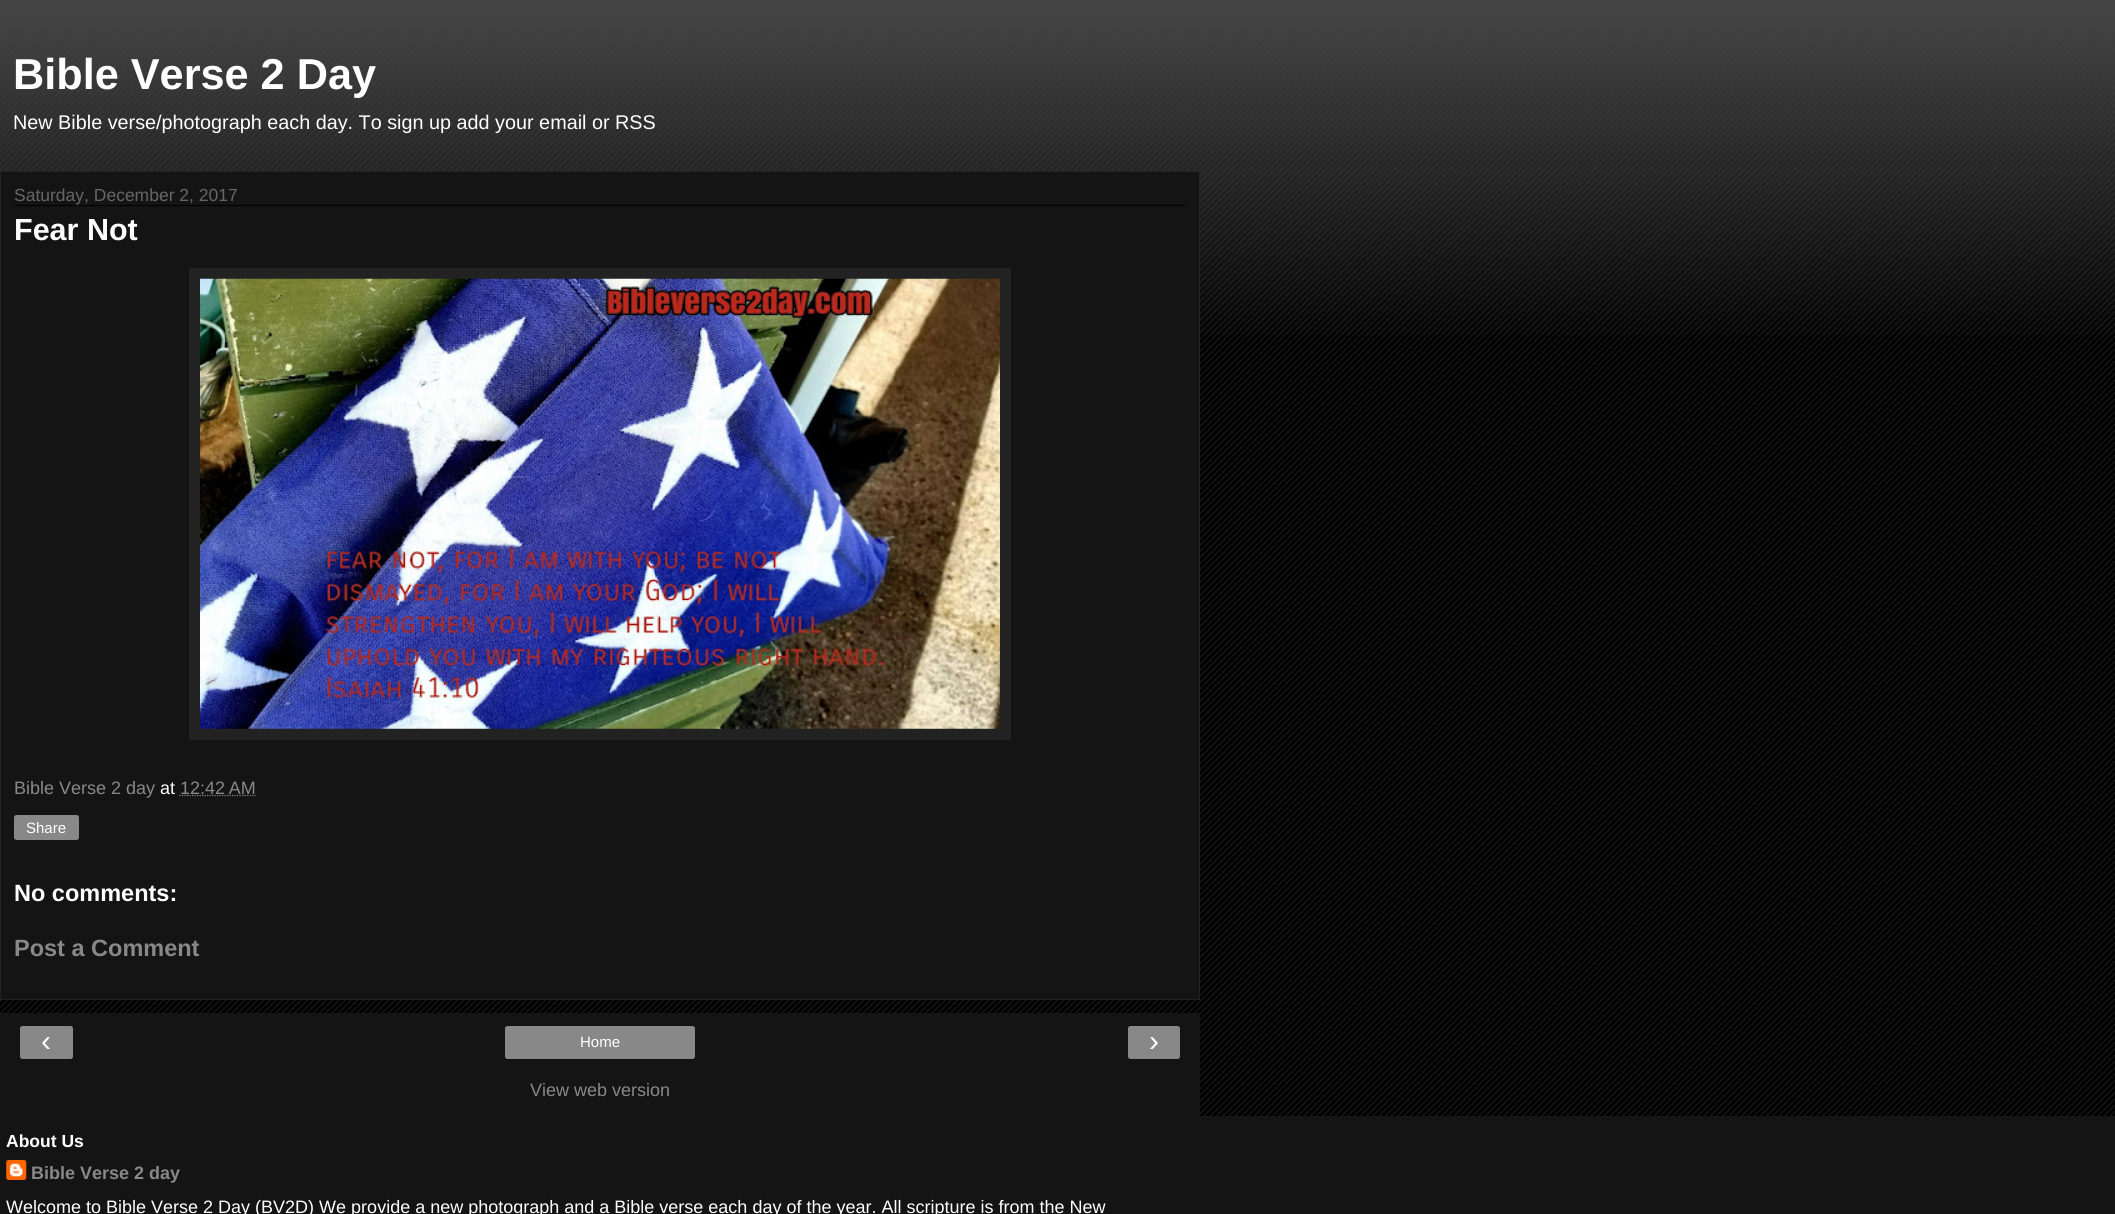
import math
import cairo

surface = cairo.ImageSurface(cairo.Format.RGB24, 2115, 1214)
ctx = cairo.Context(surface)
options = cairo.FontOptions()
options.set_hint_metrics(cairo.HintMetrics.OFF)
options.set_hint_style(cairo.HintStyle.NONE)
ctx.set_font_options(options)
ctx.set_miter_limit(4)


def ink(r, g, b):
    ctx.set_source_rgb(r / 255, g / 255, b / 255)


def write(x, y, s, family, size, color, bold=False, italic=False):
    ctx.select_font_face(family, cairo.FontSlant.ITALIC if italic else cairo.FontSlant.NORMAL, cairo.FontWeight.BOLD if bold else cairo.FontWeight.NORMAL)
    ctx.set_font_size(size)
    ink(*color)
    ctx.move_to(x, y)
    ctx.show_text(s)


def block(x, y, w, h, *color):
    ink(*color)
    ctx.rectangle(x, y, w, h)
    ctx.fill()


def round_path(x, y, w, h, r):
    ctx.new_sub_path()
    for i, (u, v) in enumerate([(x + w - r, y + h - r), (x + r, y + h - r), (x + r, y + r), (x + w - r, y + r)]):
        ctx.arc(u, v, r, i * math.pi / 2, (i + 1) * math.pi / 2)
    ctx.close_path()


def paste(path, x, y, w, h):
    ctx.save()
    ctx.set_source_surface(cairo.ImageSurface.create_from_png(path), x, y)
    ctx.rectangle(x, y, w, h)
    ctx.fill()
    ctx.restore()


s1 = dict(family="Liberation Sans", size=43.25, color=(255, 255, 255), bold=True)
s2 = dict(family="Liberation Sans", size=19.8, color=(255, 255, 255))
s3 = dict(family="Liberation Sans", size=17.5, color=(102, 102, 102))
s4 = dict(family="Liberation Sans", size=30.5, color=(255, 255, 255), bold=True)
s5 = dict(family="Liberation Sans", size=18, color=(136, 136, 136))
s6 = dict(family="Liberation Sans", size=18, color=(255, 255, 255))
s7 = dict(family="Liberation Sans", size=15, color=(255, 255, 255))
s8 = dict(family="Liberation Sans", size=23.5, color=(255, 255, 255), bold=True)
s9 = dict(family="Liberation Sans", size=23.5, color=(136, 136, 136), bold=True)
s10 = dict(family="Liberation Sans", size=30, color=(255, 255, 255))
s11 = dict(family="Liberation Sans", size=17.5, color=(255, 255, 255), bold=True)
s12 = dict(family="Liberation Sans", size=18, color=(136, 136, 136), bold=True)

ink(0, 0, 0)
ctx.paint()
paste("pic1.png", 0, 16, 2115, 1100)
paste("pic2.png", 0, 0, 2115, 335)
write(13, 89, "Bible Verse 2 Day", **s1)
write(13, 129, "New Bible verse/photograph each day. To sign up add your email or RSS", **s2)
ink(20, 20, 20)
ctx.rectangle(0.5, 171.5, 1199, 828)
ctx.fill_preserve()
ink(34, 34, 34)
ctx.set_line_width(1)
ctx.stroke()
block(14, 205, 1172, 1, 0, 0, 0)
write(14, 201, "Saturday, December 2, 2017", **s3)
write(14, 240, "Fear Not", **s4)
block(189, 268, 822, 472, 34, 34, 34)
paste("pic3.png", 200, 278, 800, 451)
write(14, 794, "Bible Verse 2 day", **s5)
write(160, 794, "at", **s6)
write(180, 794, "12:42 AM", **s5)
ctx.new_path()
ctx.move_to(179.5, 795.5)
ctx.line_to(255.5, 795.5)
ctx.set_line_width(1.2)
ctx.set_dash([1.25, 1.25])
ctx.stroke()
round_path(14, 815, 65, 25, 2.5)
ctx.fill()
write(26, 833, "Share", **s7)
write(14, 901, "No comments:", **s8)
write(14, 956, "Post a Comment", **s9)
block(0, 1013, 1200, 103, 20, 20, 20)
ink(136, 136, 136)
round_path(20, 1026, 53, 33, 2.5)
ctx.fill()
write(41, 1051, "‹", **s10)
ink(136, 136, 136)
round_path(505, 1026, 190, 33, 2.5)
ctx.fill()
write(580, 1047, "Home", **s7)
ink(136, 136, 136)
round_path(1128, 1026, 52, 33, 2.5)
ctx.fill()
write(1149, 1051, "›", **s10)
write(530, 1096, "View web version", **s5)
block(0, 1116, 2115, 98, 20, 20, 20)
write(6, 1147, "About Us", **s11)
paste("pic4.png", 6, 1160, 21, 20)
write(31, 1179, "Bible Verse 2 day", **s12)
write(6, 1213, "Welcome to Bible Verse 2 Day (BV2D) We provide a new photograph and a Bible verse each day of the year. All scripture is from the New", **s6)
surface.write_to_png("screenshot.png")
